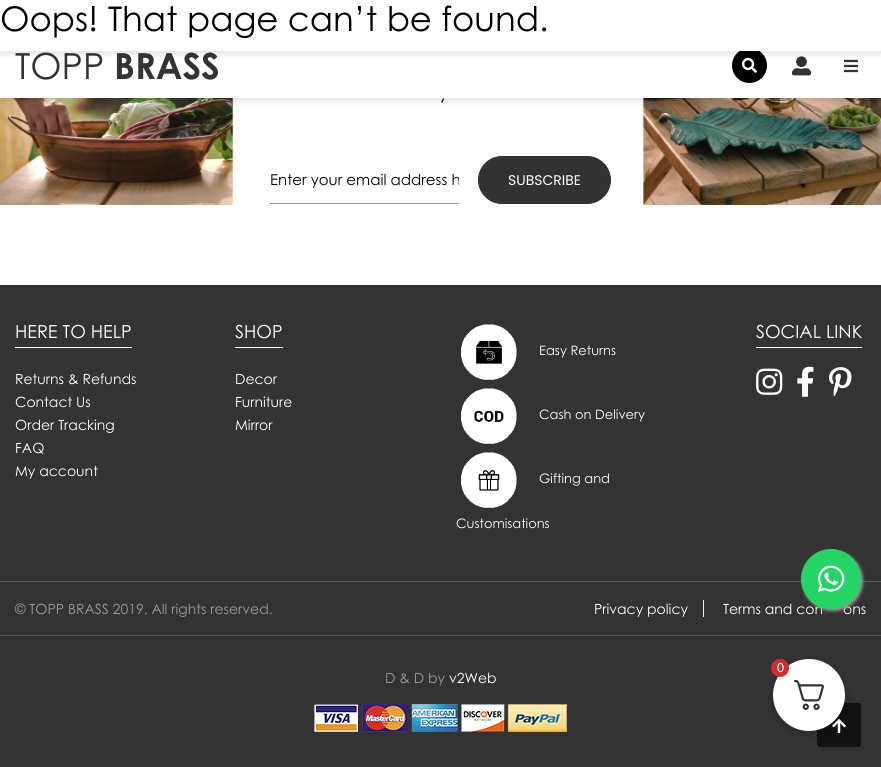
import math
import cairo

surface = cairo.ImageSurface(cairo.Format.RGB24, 881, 767)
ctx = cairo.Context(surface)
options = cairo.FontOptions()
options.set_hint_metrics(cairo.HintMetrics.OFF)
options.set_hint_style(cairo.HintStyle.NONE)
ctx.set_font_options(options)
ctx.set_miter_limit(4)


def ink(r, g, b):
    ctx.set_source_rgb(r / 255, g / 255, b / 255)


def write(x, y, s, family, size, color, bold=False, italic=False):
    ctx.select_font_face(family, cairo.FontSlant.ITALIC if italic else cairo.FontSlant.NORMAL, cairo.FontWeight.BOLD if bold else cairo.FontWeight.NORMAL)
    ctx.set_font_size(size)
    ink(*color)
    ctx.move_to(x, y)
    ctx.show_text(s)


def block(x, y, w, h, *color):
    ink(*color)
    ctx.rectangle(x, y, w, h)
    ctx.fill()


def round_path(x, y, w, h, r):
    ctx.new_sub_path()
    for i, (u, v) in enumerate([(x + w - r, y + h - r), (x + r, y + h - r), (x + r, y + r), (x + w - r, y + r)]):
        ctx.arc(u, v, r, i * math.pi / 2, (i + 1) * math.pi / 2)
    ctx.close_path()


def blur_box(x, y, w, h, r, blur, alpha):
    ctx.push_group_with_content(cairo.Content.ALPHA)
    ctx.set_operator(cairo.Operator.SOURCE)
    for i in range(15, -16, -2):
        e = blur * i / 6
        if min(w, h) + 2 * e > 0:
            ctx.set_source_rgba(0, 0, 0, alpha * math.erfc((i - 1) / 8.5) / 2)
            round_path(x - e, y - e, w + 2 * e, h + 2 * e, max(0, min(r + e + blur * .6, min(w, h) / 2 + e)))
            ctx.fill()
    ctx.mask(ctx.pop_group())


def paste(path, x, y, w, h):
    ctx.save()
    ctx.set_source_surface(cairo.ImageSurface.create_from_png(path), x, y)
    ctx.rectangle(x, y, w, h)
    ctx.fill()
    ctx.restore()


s1 = dict(family="Century Gothic", size=34, color=(0, 0, 0))
s2 = dict(family="Century Gothic", size=36, color=(50, 51, 50))
s3 = dict(family="Century Gothic", size=36, color=(50, 51, 50), bold=True)
s4 = dict(family="Century Gothic", size=20, color=(0, 0, 0))
s5 = dict(family="Century Gothic", size=15, color=(0, 0, 0))
s6 = dict(family="Poppins", size=14, color=(255, 255, 255))
s7 = dict(family="Century Gothic", size=18, color=(255, 255, 255))
s8 = dict(family="Century Gothic", size=14, color=(255, 255, 255))
s9 = dict(family="Century Gothic", size=13, color=(255, 255, 255))
s10 = dict(family="Century Gothic", size=14, color=(153, 153, 153))
s11 = dict(family="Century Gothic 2", size=12, color=(255, 255, 255), bold=True)

ink(255, 255, 255)
ctx.paint()
paste("pic4.png", 0, 98, 881, 107)
ink(0, 0, 0)
blur_box(0, 3, 881, 98, 0, 3.5, 0.12)
block(0, 51, 881, 47, 255, 255, 255)
ink(0, 0, 0)
ctx.arc(749.5, 65.5, 17.5, 0, 2 * math.pi)
ctx.fill()
paste("pic1.png", 742, 57, 15, 16)
paste("pic2.png", 792, 56, 19, 20)
paste("pic3.png", 844, 59, 14, 14)
ink(0, 0, 0)
blur_box(0, 3, 881, 51, 0, 3.5, 0.12)
block(0, 0, 881, 51, 255, 255, 255)
write(0, 31, "Oops! That page can’t be found.", **s1)
write(15, 79, "TOPP", **s2)
write(114, 79, "BRASS", **s3)
write(440, 101, ",", **s4)
block(270, 203, 189, 1, 153, 153, 153)
ctx.save()
ctx.rectangle(270, 168, 189, 23)
ctx.clip()
write(270, 185, "Enter your email address h", **s5)
ctx.restore()
ink(50, 50, 50)
round_path(478.5, 156.5, 132, 47, 23.5)
ctx.fill_preserve()
ctx.set_line_width(1)
ctx.stroke()
write(508, 185, "SUBSCRIBE", **s6)
block(0, 285, 881, 482, 50, 51, 50)
write(15, 338, "HERE TO HELP", **s7)
block(15, 347, 117, 1, 255, 255, 255)
write(15, 384, "Returns & Refunds", **s8)
write(15, 407, "Contact Us", **s8)
write(15, 430, "Order Tracking", **s8)
write(15, 453, "FAQ", **s8)
write(15, 476, "My account", **s8)
write(235, 338, "SHOP", **s7)
block(235, 347, 48, 1, 255, 255, 255)
write(235, 384, "Decor", **s8)
write(235, 407, "Furniture", **s8)
write(235, 430, "Mirror", **s8)
write(756, 338, "SOCIAL LINK", **s7)
block(756, 347, 106, 1, 255, 255, 255)
paste("pic5.png", 756, 368, 27, 27)
paste("pic6.png", 797, 366, 17, 31)
paste("pic7.png", 829, 367, 23, 30)
paste("pic8.png", 461, 324, 56, 56)
write(539, 355, "Easy Returns", **s9)
paste("pic9.png", 461, 388, 56, 56)
write(539, 419, "Cash on Delivery", **s9)
paste("pic10.png", 461, 452, 56, 56)
write(539, 483, "Gifting and", **s9)
write(456, 528, "Customisations", **s9)
block(0, 581, 881, 1, 87, 88, 87)
block(0, 635, 881, 1, 87, 88, 87)
write(15, 614, "© TOPP BRASS 2019. All rights reserved.", **s10)
write(594, 614, "Privacy policy", **s8)
block(703, 600, 1, 17, 238, 238, 238)
write(723, 614, "Terms and con", **s8)
write(843, 614, "ons", **s8)
write(385, 683, "D & D by", **s10)
write(449, 683, "v2Web", **s8)
paste("pic11.png", 314, 704, 253, 28)
ink(153, 153, 153)
blur_box(803, 551, 60, 60, 30, 1.5, 1)
ink(37, 211, 102)
ctx.arc(831, 579, 30, 0, 2 * math.pi)
ctx.fill()
paste("pic12.png", 818, 565, 27, 27)
ink(17, 17, 17)
round_path(817.5, 703.5, 43, 43, 2.5)
ctx.fill_preserve()
ctx.stroke()
paste("pic14.png", 832, 719, 14, 14)
ink(0, 0, 0)
blur_box(773, 661, 72, 72, 36, 4, 0.25)
ink(255, 255, 255)
ctx.arc(809, 695, 36, 0, 2 * math.pi)
ctx.fill()
paste("pic13.png", 794, 680, 30, 30)
ink(207, 46, 46)
ctx.arc(780, 668, 9, 0, 2 * math.pi)
ctx.fill()
write(777, 672, "0", **s11)
surface.write_to_png("screenshot.png")
